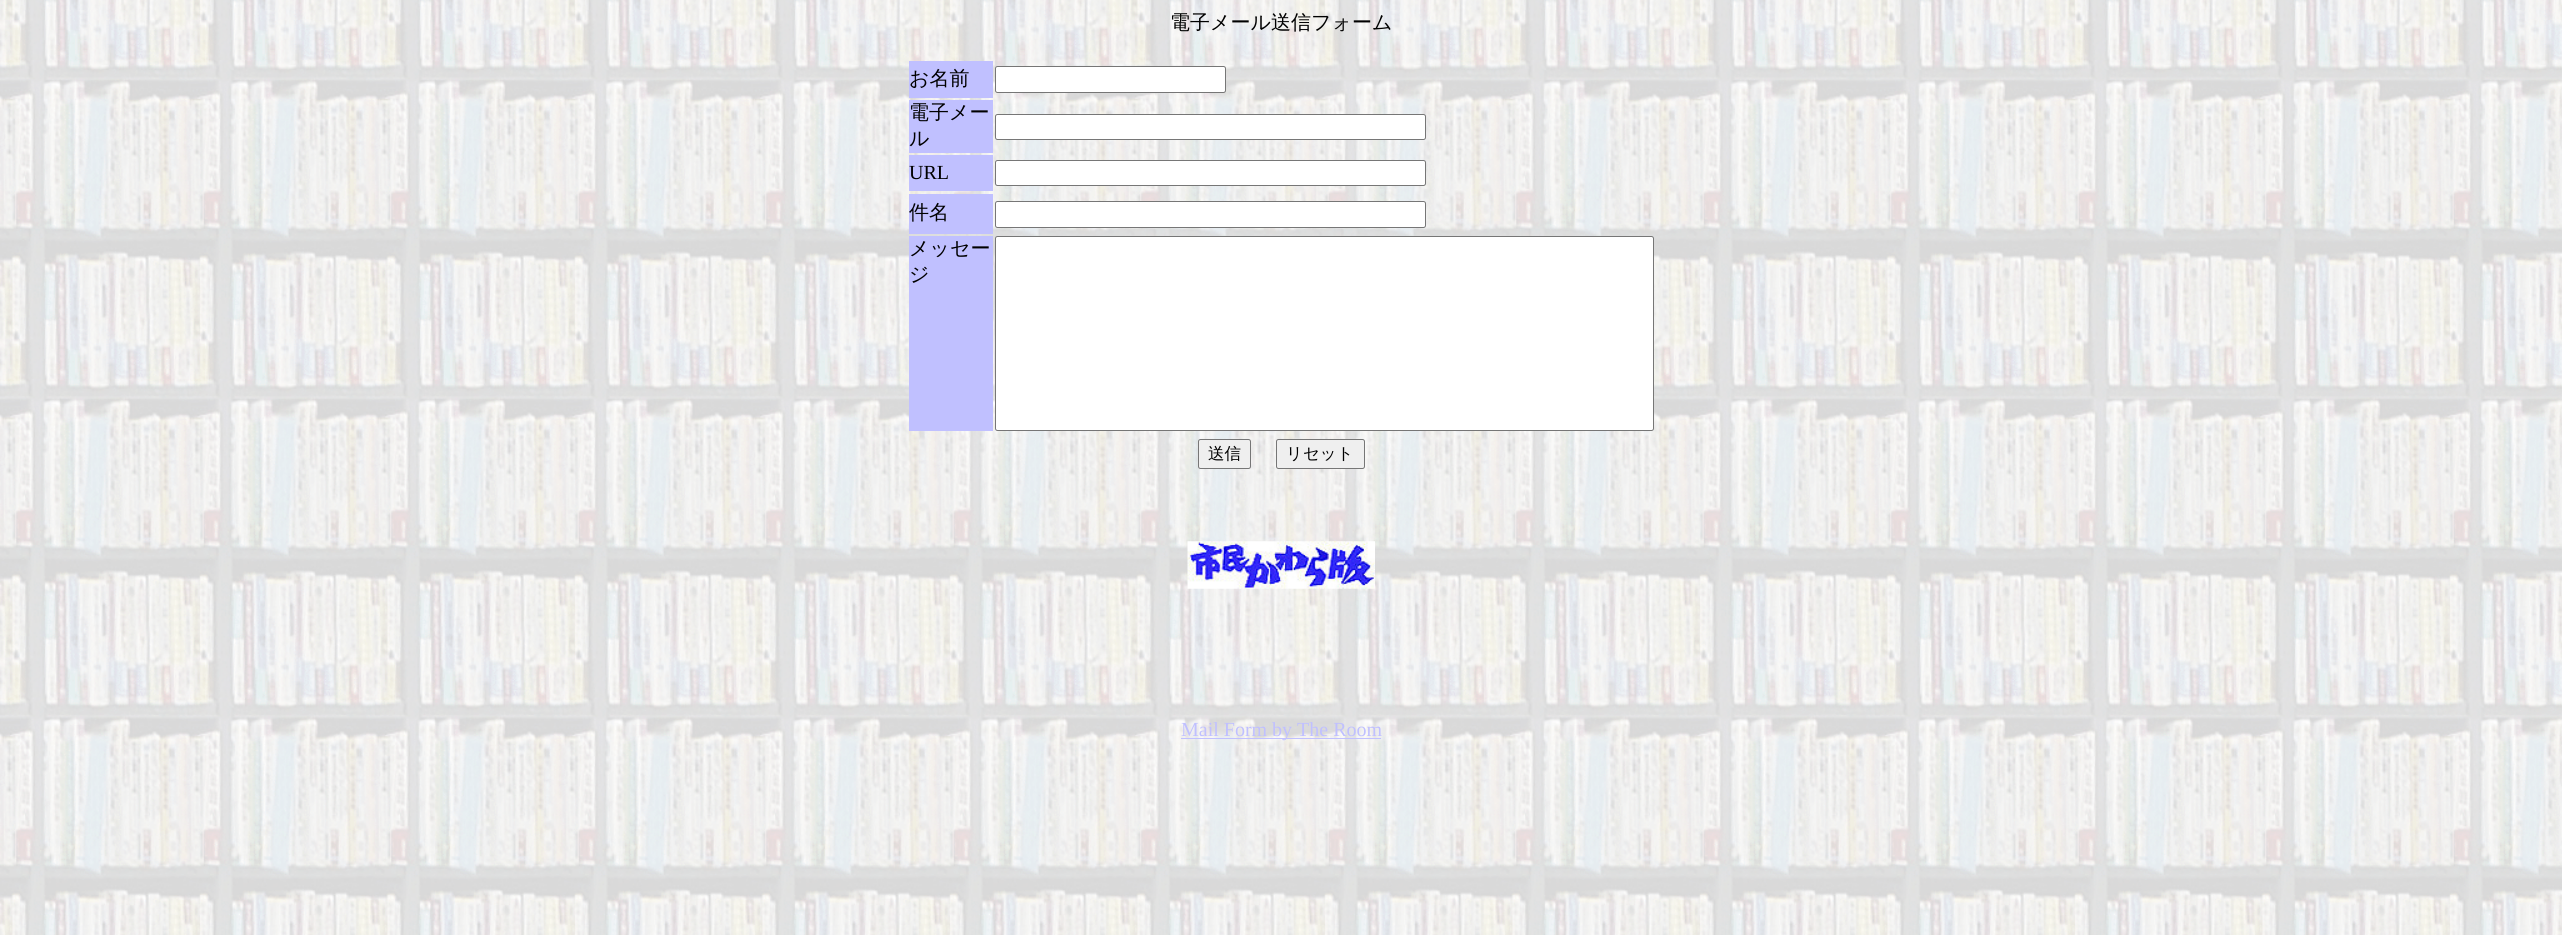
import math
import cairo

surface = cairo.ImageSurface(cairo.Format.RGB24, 2562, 935)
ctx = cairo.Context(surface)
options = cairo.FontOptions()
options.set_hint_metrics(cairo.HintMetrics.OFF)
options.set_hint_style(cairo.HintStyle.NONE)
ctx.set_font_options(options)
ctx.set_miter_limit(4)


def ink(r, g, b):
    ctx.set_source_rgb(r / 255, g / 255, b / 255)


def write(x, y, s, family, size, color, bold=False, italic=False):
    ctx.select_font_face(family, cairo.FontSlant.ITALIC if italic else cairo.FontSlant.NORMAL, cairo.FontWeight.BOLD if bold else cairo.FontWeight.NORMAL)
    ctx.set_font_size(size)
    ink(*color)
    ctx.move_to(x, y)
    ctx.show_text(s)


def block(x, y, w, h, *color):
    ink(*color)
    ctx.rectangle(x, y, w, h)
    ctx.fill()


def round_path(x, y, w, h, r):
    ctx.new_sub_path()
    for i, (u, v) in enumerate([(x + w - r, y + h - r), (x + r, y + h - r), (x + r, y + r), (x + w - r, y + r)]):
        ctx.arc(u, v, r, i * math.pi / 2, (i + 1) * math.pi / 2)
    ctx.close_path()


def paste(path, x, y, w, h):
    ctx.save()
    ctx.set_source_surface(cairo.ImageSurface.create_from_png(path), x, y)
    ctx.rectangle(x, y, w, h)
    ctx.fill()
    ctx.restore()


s1 = dict(family="WenQuanYi Zen Hei Medium", size=20, color=(0, 0, 0))
s2 = dict(family="Liberation Serif", size=20, color=(0, 0, 0))
s3 = dict(family="WenQuanYi Zen Hei Medium", size=16.5, color=(0, 0, 0))
s4 = dict(family="Liberation Serif", size=20, color=(192, 192, 255))

ink(255, 255, 255)
ctx.paint()
paste("pic1.png", 0, 0, 2562, 935)
write(1170, 29, "電子メール送信フォーム", **s1)
block(909, 61, 84, 37, 192, 192, 255)
write(909, 85, "お名前", **s1)
ink(255, 255, 255)
round_path(995.5, 66.5, 230, 26, 2)
ctx.fill_preserve()
ink(118, 118, 118)
ctx.set_line_width(1)
ctx.stroke()
block(909, 100, 84, 53, 192, 192, 255)
write(909, 119, "電子メー", **s1)
write(909, 145, "ル", **s1)
ink(255, 255, 255)
round_path(995.5, 114.5, 430, 25, 2)
ctx.fill_preserve()
ink(118, 118, 118)
ctx.stroke()
block(909, 155, 84, 36, 192, 192, 255)
write(909, 179, "URL", **s2)
ink(255, 255, 255)
round_path(995.5, 160.5, 430, 25, 2)
ctx.fill_preserve()
ink(118, 118, 118)
ctx.stroke()
block(909, 194, 84, 40, 192, 192, 255)
write(909, 219, "件名", **s1)
ink(255, 255, 255)
round_path(995.5, 201.5, 430, 26, 2)
ctx.fill_preserve()
ink(118, 118, 118)
ctx.stroke()
block(909, 236, 84, 195, 192, 192, 255)
write(909, 255, "メッセー", **s1)
write(909, 281, "ジ", **s1)
ink(255, 255, 255)
round_path(995.5, 236.5, 658, 194, 2)
ctx.fill_preserve()
ink(118, 118, 118)
ctx.stroke()
ink(239, 239, 239)
round_path(1198.5, 439.5, 52, 29, 2)
ctx.fill_preserve()
ink(118, 118, 118)
ctx.stroke()
write(1208, 459, "送信", **s3)
ink(239, 239, 239)
round_path(1276.5, 439.5, 88, 29, 2)
ctx.fill_preserve()
ink(118, 118, 118)
ctx.stroke()
write(1286, 459, "リセット", **s3)
paste("pic2.png", 1187, 541, 188, 48)
block(1181, 738, 200, 1, 192, 192, 255)
write(1181, 736, "Mail Form by The Room", **s4)
surface.write_to_png("screenshot.png")
